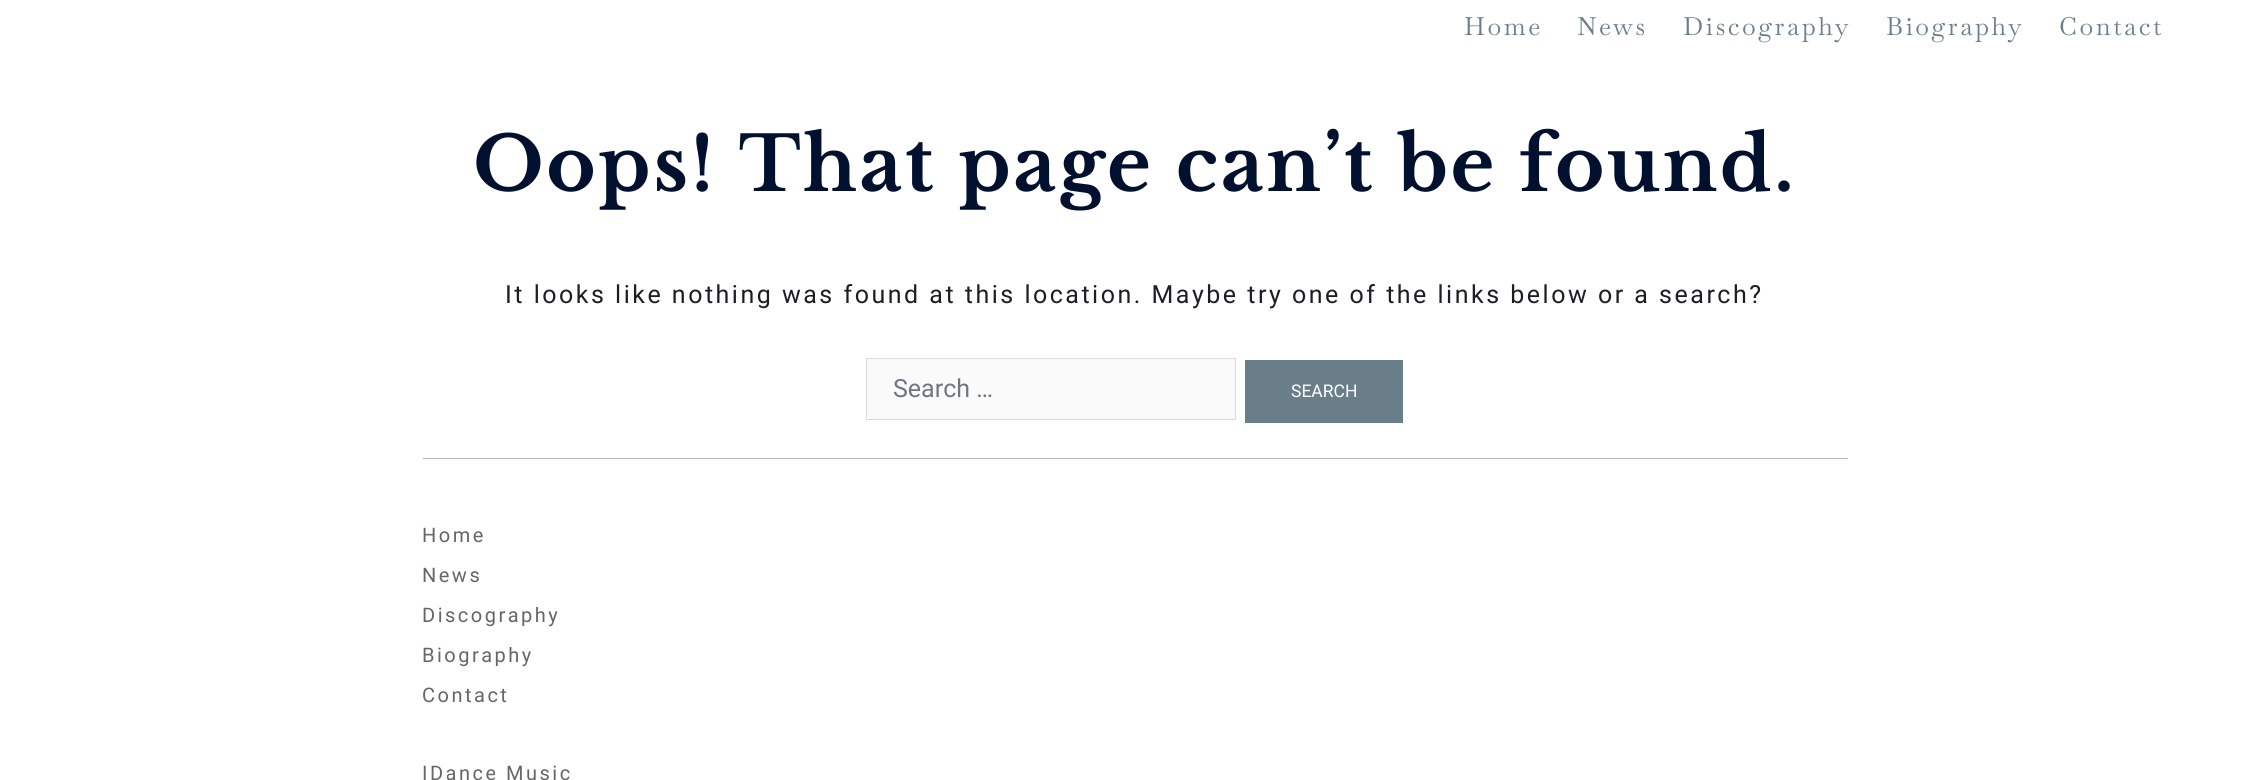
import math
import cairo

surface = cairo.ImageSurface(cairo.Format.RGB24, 2268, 780)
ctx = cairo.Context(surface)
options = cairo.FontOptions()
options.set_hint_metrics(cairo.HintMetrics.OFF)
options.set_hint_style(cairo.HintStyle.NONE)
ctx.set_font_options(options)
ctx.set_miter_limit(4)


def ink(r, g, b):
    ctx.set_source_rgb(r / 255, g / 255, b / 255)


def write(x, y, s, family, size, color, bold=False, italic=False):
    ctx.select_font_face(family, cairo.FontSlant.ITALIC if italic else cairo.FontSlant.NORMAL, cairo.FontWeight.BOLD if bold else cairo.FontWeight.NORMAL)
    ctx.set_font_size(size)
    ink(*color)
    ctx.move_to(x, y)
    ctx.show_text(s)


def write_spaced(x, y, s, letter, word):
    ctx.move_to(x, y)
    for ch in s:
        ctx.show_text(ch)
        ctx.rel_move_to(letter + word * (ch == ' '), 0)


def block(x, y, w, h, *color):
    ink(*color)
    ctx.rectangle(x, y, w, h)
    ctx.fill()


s1 = dict(family="Roboto", size=25, color=(109, 118, 133))
s2 = dict(family="Roboto", size=17.5, color=(255, 255, 255))

ink(255, 255, 255)
ctx.paint()
ctx.select_font_face("Baskervville")
ctx.set_font_size(25)
ink(106, 126, 138)
write_spaced(1464, 35, "Home", 2.5, 0)
write_spaced(1577, 35, "News", 2.5, 0)
write_spaced(1683, 35, "Discography", 2.5, 0)
write_spaced(1886, 35, "Biography", 2.5, 0)
write_spaced(2059, 35, "Contact", 2.5, 0)
ctx.select_font_face("Libre Baskerville", cairo.FontSlant.NORMAL, cairo.FontWeight.BOLD)
ctx.set_font_size(75)
ink(0, 16, 46)
write_spaced(473, 191, "Oops! That page can’t be found.", 2.5, 0)
ctx.select_font_face("Roboto")
ctx.set_font_size(25)
ink(29, 30, 37)
write_spaced(505, 303, "It looks like nothing was found at this location. Maybe try one of the links below or a search?", 2.5, 0)
ink(250, 250, 250)
ctx.rectangle(866.5, 358.5, 369, 61)
ctx.fill_preserve()
ink(219, 219, 219)
ctx.set_line_width(1)
ctx.stroke()
write(893, 397, "Search …", **s1)
block(1245, 360, 158, 63, 106, 126, 138)
write(1291, 397, "SEARCH", **s2)
block(423, 458, 1425, 1, 179, 184, 194)
ctx.set_font_size(20)
ink(102, 102, 102)
write_spaced(422, 542, "Home", 2.5, 0)
write_spaced(422, 582, "News", 2.5, 0)
write_spaced(422, 622, "Discography", 2.5, 0)
write_spaced(422, 662, "Biography", 2.5, 0)
write_spaced(422, 702, "Contact", 2.5, 0)
write_spaced(422, 780, "IDance Music", 2.5, 0)
surface.write_to_png("screenshot.png")
